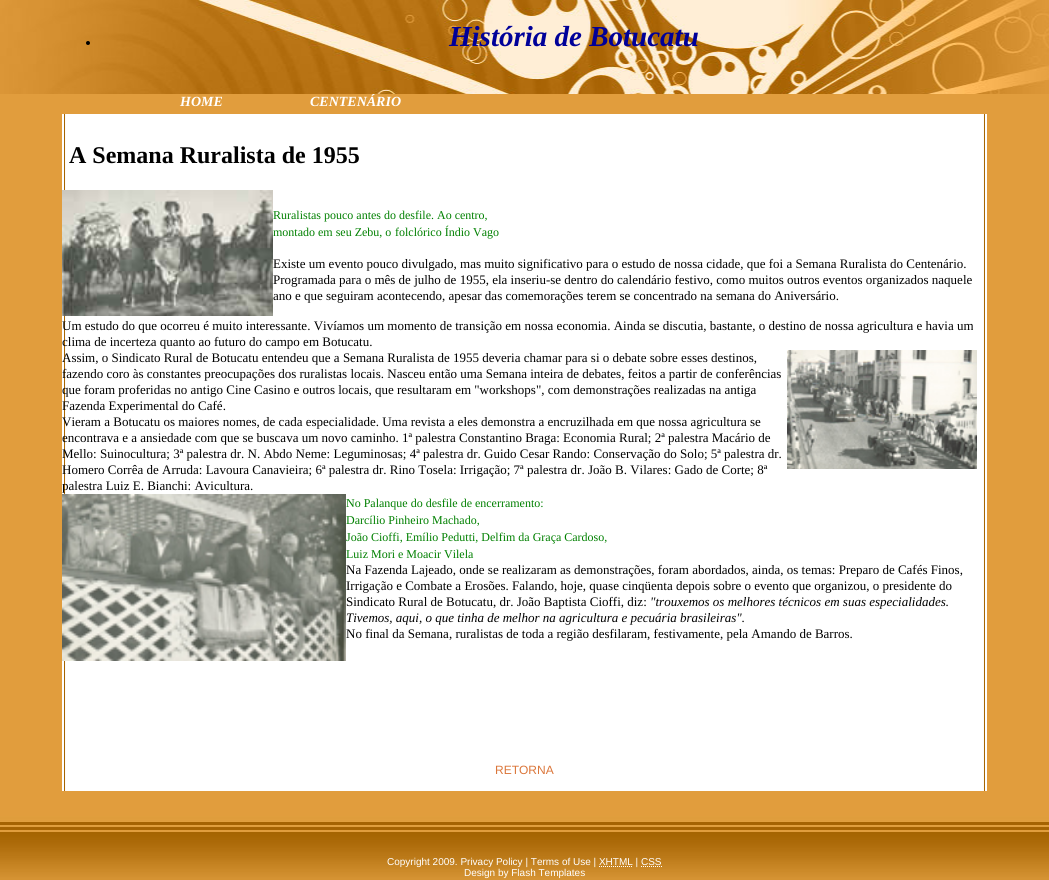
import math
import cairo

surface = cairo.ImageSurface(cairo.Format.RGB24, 1049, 880)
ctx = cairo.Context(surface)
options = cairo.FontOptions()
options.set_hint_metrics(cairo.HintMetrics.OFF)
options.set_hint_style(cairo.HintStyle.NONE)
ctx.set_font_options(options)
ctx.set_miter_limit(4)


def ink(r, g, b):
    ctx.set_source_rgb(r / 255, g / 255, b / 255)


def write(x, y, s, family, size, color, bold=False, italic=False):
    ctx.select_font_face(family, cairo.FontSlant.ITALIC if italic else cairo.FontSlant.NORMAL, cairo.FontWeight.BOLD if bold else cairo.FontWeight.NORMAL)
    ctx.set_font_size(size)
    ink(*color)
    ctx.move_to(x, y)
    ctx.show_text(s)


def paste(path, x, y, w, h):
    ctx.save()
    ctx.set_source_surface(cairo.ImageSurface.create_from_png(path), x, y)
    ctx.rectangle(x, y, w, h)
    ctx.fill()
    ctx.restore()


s1 = dict(family="Liberation Serif", size=29, color=(0, 0, 153), bold=True, italic=True)
s2 = dict(family="Liberation Serif", size=14, color=(255, 255, 255), bold=True, italic=True)
s3 = dict(family="Liberation Serif", size=24, color=(0, 0, 0), bold=True)
s4 = dict(family="Liberation Serif", size=12, color=(0, 128, 0))
s5 = dict(family="Liberation Serif", size=13, color=(0, 0, 0))
s6 = dict(family="Liberation Serif", size=13, color=(0, 0, 0), italic=True)
s7 = dict(family="Liberation Sans", size=12, color=(219, 118, 58))
s8 = dict(family="Liberation Sans", size=10, color=(255, 255, 255))

ink(225, 157, 61)
ctx.paint()
paste("pic1.png", 0, 0, 1049, 94)
ink(0, 0, 0)
ctx.arc(88, 43, 2, 0, 2 * math.pi)
ctx.fill()
write(449, 46, "História de Botucatu", **s1)
write(180, 106, "HOME", **s2)
write(310, 106, "CENTENÁRIO", **s2)
paste("pic2.png", 62, 114, 925, 677)
write(69, 163, "A Semana Ruralista de 1955", **s3)
paste("pic3.png", 62, 190, 211, 126)
write(273, 219, "Ruralistas pouco antes do desfile. Ao centro,", **s4)
write(273, 236, "montado em seu Zebu, o", **s4)
write(395, 236, "folclórico Índio Vago", **s4)
write(273, 268, "Existe um evento pouco divulgado, mas muito significativo para o estudo de nossa cidade, que foi a Semana Ruralista do Centenário.", **s5)
write(273, 284, "Programada para o mês de julho de 1955, ela inseriu-se dentro do calendário festivo, como muitos outros eventos organizados naquele", **s5)
write(273, 300, "ano e que seguiram acontecendo, apesar das comemorações terem se concentrado na semana do Aniversário.", **s5)
write(62, 330, "Um estudo do que ocorreu é muito interessante. Vivíamos um momento de transição em nossa economia. Ainda se discutia, bastante, o destino de nossa agricultura e havia um", **s5)
write(62, 346, "clima de incerteza quanto ao futuro do campo em Botucatu.", **s5)
write(62, 362, "Assim, o Sindicato Rural de Botucatu entendeu que a Semana Ruralista de 1955 deveria chamar para si o debate sobre esses destinos,", **s5)
paste("pic4.png", 787, 350, 190, 119)
write(62, 378, "fazendo coro às constantes preocupações dos ruralistas locais. Nasceu então uma Semana inteira de debates, feitos a partir de conferências", **s5)
write(62, 394, "que foram proferidas no antigo Cine Casino e outros locais, que resultaram em \"workshops\", com demonstrações realizadas na antiga", **s5)
write(62, 410, "Fazenda Experimental do Café.", **s5)
write(62, 426, "Vieram a Botucatu os maiores nomes, de cada especialidade. Uma revista a eles demonstra a encruzilhada em que nossa agricultura se", **s5)
write(62, 442, "encontrava e a ansiedade com que se buscava um novo caminho. 1ª palestra Constantino Braga: Economia Rural; 2ª palestra Macário de", **s5)
write(62, 458, "Mello: Suinocultura; 3ª palestra dr. N. Abdo Neme: Leguminosas; 4ª palestra dr. Guido Cesar Rando: Conservação do Solo; 5ª palestra dr.", **s5)
write(62, 474, "Homero Corrêa de Arruda: Lavoura Canavieira; 6ª palestra dr. Rino Tosela: Irrigação; 7ª palestra dr. João B. Vilares: Gado de Corte; 8ª", **s5)
write(62, 490, "palestra Luiz E. Bianchi: Avicultura.", **s5)
paste("pic5.png", 62, 494, 284, 167)
write(346, 507, "No Palanque do desfile de encerramento:", **s4)
write(346, 524, "Darcílio Pinheiro Machado,", **s4)
write(346, 541, "João Cioffi, Emílio Pedutti, Delfim da Graça Cardoso,", **s4)
write(346, 558, "Luiz Mori e Moacir Vilela", **s4)
write(346, 574, "Na Fazenda Lajeado, onde se realizaram as demonstrações, foram abordados, ainda, os temas: Preparo de Cafés Finos,", **s5)
write(346, 590, "Irrigação e Combate a Erosões. Falando, hoje, quase cinqüenta depois sobre o evento que organizou, o presidente do", **s5)
write(346, 606, "Sindicato Rural de Botucatu, dr. João Baptista Cioffi, diz:", **s5)
write(650, 606, "\"trouxemos os melhores técnicos em suas especialidades.", **s6)
write(346, 622, "Tivemos, aqui, o que tinha de melhor na agricultura e pecuária brasileiras\".", **s6)
write(346, 638, "No final da Semana, ruralistas de toda a região desfilaram, festivamente, pela Amando de Barros.", **s5)
write(495, 774, "RETORNA", **s7)
paste("pic6.png", 0, 816, 1049, 64)
write(387, 865, "Copyright 2009. Privacy Policy | Terms of Use | XHTML | CSS", **s8)
ctx.new_path()
ctx.move_to(599, 866.5)
ctx.line_to(633, 866.5)
ctx.move_to(641, 866.5)
ctx.line_to(662, 866.5)
ctx.set_line_width(1)
ctx.set_dash([1, 1])
ctx.stroke()
write(464, 876, "Design by Flash Templates", **s8)
surface.write_to_png("screenshot.png")
